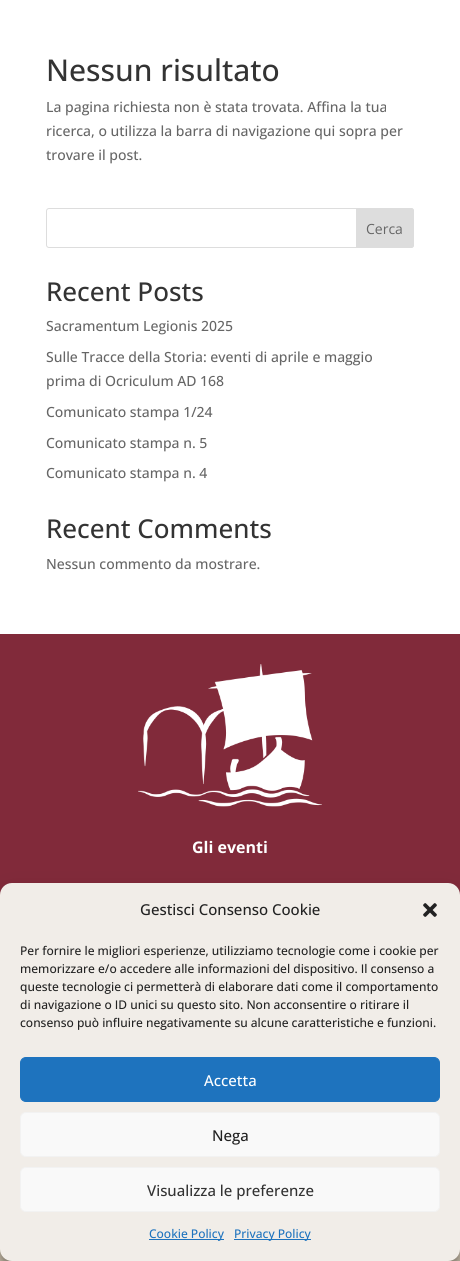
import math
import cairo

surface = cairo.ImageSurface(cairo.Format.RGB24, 460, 1261)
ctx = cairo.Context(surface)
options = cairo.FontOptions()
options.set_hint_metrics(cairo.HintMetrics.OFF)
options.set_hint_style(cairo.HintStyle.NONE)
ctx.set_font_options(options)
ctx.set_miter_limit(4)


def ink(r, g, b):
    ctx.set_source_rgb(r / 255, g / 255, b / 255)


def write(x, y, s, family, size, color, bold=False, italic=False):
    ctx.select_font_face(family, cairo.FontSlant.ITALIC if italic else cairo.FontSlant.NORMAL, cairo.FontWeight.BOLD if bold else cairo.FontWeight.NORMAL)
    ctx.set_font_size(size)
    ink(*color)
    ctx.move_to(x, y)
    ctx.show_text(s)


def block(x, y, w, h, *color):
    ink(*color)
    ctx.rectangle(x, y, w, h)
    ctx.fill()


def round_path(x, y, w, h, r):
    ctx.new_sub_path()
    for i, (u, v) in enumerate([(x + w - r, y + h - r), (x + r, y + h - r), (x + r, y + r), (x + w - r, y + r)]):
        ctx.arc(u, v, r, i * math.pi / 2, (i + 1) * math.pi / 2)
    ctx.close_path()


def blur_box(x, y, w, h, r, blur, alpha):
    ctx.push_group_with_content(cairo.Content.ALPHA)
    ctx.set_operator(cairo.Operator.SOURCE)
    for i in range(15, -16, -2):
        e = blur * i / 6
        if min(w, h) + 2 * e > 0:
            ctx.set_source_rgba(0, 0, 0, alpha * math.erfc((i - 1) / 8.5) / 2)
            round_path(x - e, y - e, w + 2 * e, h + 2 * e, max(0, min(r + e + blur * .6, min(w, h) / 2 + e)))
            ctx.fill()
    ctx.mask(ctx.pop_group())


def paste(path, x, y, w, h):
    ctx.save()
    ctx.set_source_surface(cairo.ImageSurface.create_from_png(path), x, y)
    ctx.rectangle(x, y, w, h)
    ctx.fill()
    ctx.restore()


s1 = dict(family="Open Sans Medium", size=30, color=(51, 51, 51))
s2 = dict(family="Open Sans Medium", size=14, color=(102, 102, 102))
s3 = dict(family="Open Sans", size=14, color=(102, 102, 102))
s4 = dict(family="Open Sans Medium", size=26, color=(51, 51, 51))
s5 = dict(family="Open Sans", size=16, color=(255, 255, 255), bold=True)
s6 = dict(family="Open Sans Medium", size=15, color=(34, 34, 34))
s7 = dict(family="Open Sans Medium", size=12, color=(34, 34, 34))
s8 = dict(family="Open Sans Medium", size=15, color=(255, 255, 255))
s9 = dict(family="Open Sans Medium", size=15, color=(51, 51, 51))
s10 = dict(family="Open Sans Medium", size=12, color=(30, 115, 190))

ink(255, 255, 255)
ctx.paint()
write(46, 81, "Nessun risultato", **s1)
write(46, 112, "La pagina richiesta non è stata trovata. Affina la tua", **s2)
write(46, 136, "ricerca, o utilizza la barra di navigazione qui sopra per", **s2)
write(46, 160, "trovare il post.", **s2)
round_path(46.5, 208.5, 367, 39, 2.5)
ink(221, 221, 221)
ctx.set_line_width(1)
ctx.stroke()
ctx.new_path()
ctx.move_to(356.5, 208.5)
ctx.line_to(411, 208.5)
ctx.curve_to(412.5, 208.5, 413.5, 209.5, 413.5, 211)
ctx.line_to(413.5, 245)
ctx.curve_to(413.5, 246.5, 412.5, 247.5, 411, 247.5)
ctx.line_to(356.5, 247.5)
ctx.close_path()
ctx.fill_preserve()
ctx.stroke()
write(366, 234, "Cerca", **s3)
write(46, 301, "Recent Posts", **s4)
write(46, 331, "Sacramentum Legionis 2025", **s2)
write(46, 362, "Sulle Tracce della Storia: eventi di aprile e maggio", **s2)
write(46, 386, "prima di Ocriculum AD 168", **s2)
write(46, 417, "Comunicato stampa 1/24", **s2)
write(46, 448, "Comunicato stampa n. 5", **s2)
write(46, 478, "Comunicato stampa n. 4", **s2)
write(46, 538, "Recent Comments", **s4)
write(46, 569, "Nessun commento da mostrare.", **s2)
block(0, 634, 460, 261, 129, 42, 58)
paste("pic1.png", 138, 664, 184, 143)
write(192, 853, "Gli eventi", **s5)
block(0, 1249, 460, 12, 205, 193, 173)
ink(0, 0, 0)
blur_box(0, 889, 460, 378, 12, 3, 0.23)
blur_box(0, 893, 460, 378, 12, 10, 0.19)
ink(241, 237, 232)
round_path(0, 883, 460, 378, 12)
ctx.fill()
write(140, 915, "Gestisci Consenso Cookie", **s6)
paste("pic2.png", 423, 903, 14, 14)
write(20, 955, "Per fornire le migliori esperienze, utilizziamo tecnologie come i cookie per", **s7)
write(20, 973, "memorizzare e/o accedere alle informazioni del dispositivo. Il consenso a", **s7)
write(20, 991, "queste tecnologie ci permetterà di elaborare dati come il comportamento", **s7)
write(20, 1009, "di navigazione o ID unici su questo sito. Non acconsentire o ritirare il", **s7)
write(20, 1027, "consenso può influire negativamente su alcune caratteristiche e funzioni.", **s7)
ink(30, 115, 190)
round_path(20.5, 1057.5, 419, 44, 5.5)
ctx.fill_preserve()
ctx.stroke()
write(204, 1086, "Accetta", **s8)
ink(249, 249, 249)
round_path(20.5, 1112.5, 419, 44, 5.5)
ctx.fill_preserve()
ink(242, 242, 242)
ctx.stroke()
write(212, 1141, "Nega", **s6)
ink(249, 249, 249)
round_path(20.5, 1167.5, 419, 44, 5.5)
ctx.fill_preserve()
ink(242, 242, 242)
ctx.stroke()
write(147, 1196, "Visualizza le preferenze", **s9)
block(149, 1239, 75, 1, 30, 115, 190)
write(149, 1238, "Cookie Policy", **s10)
block(234, 1239, 77, 1, 30, 115, 190)
write(234, 1238, "Privacy Policy", **s10)
surface.write_to_png("screenshot.png")
